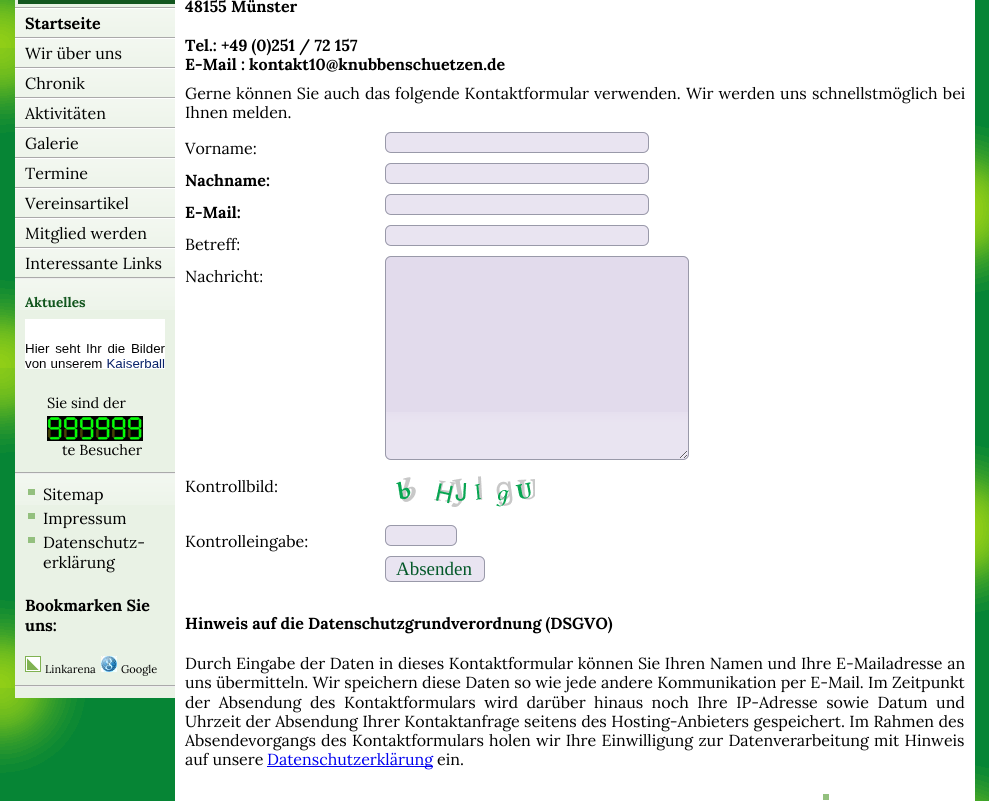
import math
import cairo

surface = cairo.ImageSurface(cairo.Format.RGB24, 989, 801)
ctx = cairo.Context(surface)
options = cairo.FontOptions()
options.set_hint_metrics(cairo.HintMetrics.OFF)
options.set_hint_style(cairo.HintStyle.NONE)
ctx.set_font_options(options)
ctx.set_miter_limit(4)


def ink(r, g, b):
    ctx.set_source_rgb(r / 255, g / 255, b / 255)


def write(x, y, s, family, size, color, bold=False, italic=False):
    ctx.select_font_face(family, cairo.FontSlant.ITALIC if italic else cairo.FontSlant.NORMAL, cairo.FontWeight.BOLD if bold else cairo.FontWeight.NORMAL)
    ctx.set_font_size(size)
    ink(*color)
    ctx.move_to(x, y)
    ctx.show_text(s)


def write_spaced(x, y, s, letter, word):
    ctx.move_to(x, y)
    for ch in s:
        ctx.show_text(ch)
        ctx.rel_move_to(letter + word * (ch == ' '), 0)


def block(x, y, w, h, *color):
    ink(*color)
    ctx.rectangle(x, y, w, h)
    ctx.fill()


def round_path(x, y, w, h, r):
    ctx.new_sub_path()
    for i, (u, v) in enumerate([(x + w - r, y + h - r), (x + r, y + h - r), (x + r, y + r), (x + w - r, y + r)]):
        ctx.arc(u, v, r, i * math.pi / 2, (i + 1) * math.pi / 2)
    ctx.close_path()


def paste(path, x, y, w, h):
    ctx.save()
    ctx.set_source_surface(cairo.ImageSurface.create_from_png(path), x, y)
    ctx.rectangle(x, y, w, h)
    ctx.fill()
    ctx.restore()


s1 = dict(family="Lora", size=16, color=(0, 0, 0), bold=True)
s2 = dict(family="Lora", size=16, color=(0, 0, 0))
s3 = dict(family="Lora", size=13.5, color=(18, 86, 30), bold=True)
s4 = dict(family="Lora", size=14.5, color=(0, 0, 0))
s5 = dict(family="Lora", size=11, color=(0, 0, 0))
s6 = dict(family="Liberation Serif", size=19, color=(4, 88, 41))
s7 = dict(family="Lora", size=16, color=(0, 0, 238))

ink(255, 255, 255)
ctx.paint()
paste("pic1.png", 0, 0, 989, 801)
block(15, 0, 164, 7, 233, 242, 229)
block(18, 0, 158, 4, 18, 86, 30)
block(15, 7, 164, 1, 170, 170, 170)
paste("pic2.png", 15, 9, 160, 28)
block(15, 8, 160, 1, 255, 255, 255)
block(15, 37, 160, 1, 170, 170, 170)
write(25, 29, "Startseite", **s1)
paste("pic2.png", 15, 39, 160, 28)
block(15, 38, 160, 1, 255, 255, 255)
block(15, 67, 160, 1, 170, 170, 170)
write(25, 59, "Wir über uns", **s2)
paste("pic2.png", 15, 69, 160, 28)
block(15, 68, 160, 1, 255, 255, 255)
block(15, 97, 160, 1, 170, 170, 170)
write(25, 89, "Chronik", **s2)
paste("pic2.png", 15, 99, 160, 28)
block(15, 98, 160, 1, 255, 255, 255)
block(15, 127, 160, 1, 170, 170, 170)
write(25, 119, "Aktivitäten", **s2)
paste("pic2.png", 15, 129, 160, 28)
block(15, 128, 160, 1, 255, 255, 255)
block(15, 157, 160, 1, 170, 170, 170)
write(25, 149, "Galerie", **s2)
paste("pic2.png", 15, 159, 160, 28)
block(15, 158, 160, 1, 255, 255, 255)
block(15, 187, 160, 1, 170, 170, 170)
write(25, 179, "Termine", **s2)
paste("pic2.png", 15, 189, 160, 28)
block(15, 188, 160, 1, 255, 255, 255)
block(15, 217, 160, 1, 170, 170, 170)
write(25, 209, "Vereinsartikel", **s2)
paste("pic2.png", 15, 219, 160, 28)
block(15, 218, 160, 1, 255, 255, 255)
block(15, 247, 160, 1, 170, 170, 170)
write(25, 239, "Mitglied werden", **s2)
paste("pic2.png", 15, 249, 160, 28)
block(15, 248, 160, 1, 255, 255, 255)
block(15, 277, 160, 1, 170, 170, 170)
write(25, 269, "Interessante Links", **s2)
block(15, 310, 160, 162, 233, 242, 229)
paste("pic3.png", 15, 279, 160, 31)
block(15, 278, 160, 1, 238, 238, 238)
block(15, 472, 160, 1, 170, 170, 170)
write(25, 307, "Aktuelles", **s3)
paste("pic4.png", 25, 319, 140, 50)
write(47, 408, "Sie sind der", **s4)
paste("pic5.png", 47, 416, 16, 25)
paste("pic5.png", 63, 416, 16, 25)
paste("pic5.png", 79, 416, 16, 25)
paste("pic5.png", 95, 416, 16, 25)
paste("pic5.png", 111, 416, 16, 25)
paste("pic5.png", 127, 416, 16, 25)
write(62, 455, "te Besucher", **s4)
block(15, 505, 160, 180, 233, 242, 229)
paste("pic3.png", 15, 474, 160, 31)
block(15, 473, 160, 1, 238, 238, 238)
block(15, 685, 160, 1, 170, 170, 170)
block(28, 489, 7, 6, 147, 192, 126)
write(43, 500, "Sitemap", **s2)
block(28, 513, 7, 6, 147, 192, 126)
write(43, 524, "Impressum", **s2)
block(28, 537, 7, 6, 147, 192, 126)
write(43, 548, "Datenschutz-", **s2)
write(43, 568, "erklärung", **s2)
write(25, 611, "Bookmarken Sie", **s1)
write(25, 631, "uns:", **s1)
paste("pic6.png", 25, 656, 16, 16)
write(45, 673, "Linkarena", **s5)
paste("pic7.png", 101, 656, 16, 16)
write(121, 673, "Google", **s5)
block(15, 687, 160, 11, 233, 242, 229)
block(15, 686, 160, 1, 238, 238, 238)
block(175, 0, 800, 801, 255, 255, 255)
write(185, 12, "48155 Münster", **s1)
write(185, 51, "Tel.: +49 (0)251 / 72 157", **s1)
write(185, 70, "E-Mail : kontakt10@knubbenschuetzen.de", **s1)
ctx.select_font_face("Lora")
write_spaced(185, 99, "Gerne können Sie auch das folgende Kontaktformular", 0, 0.75)
write_spaced(594, 99, "verwenden. Wir werden uns schnellstmöglich bei", 0, 1)
write(185, 118, "Ihnen melden.", **s2)
write(185, 154, "Vorname:", **s2)
paste("pic8.png", 385, 132, 264, 20)
round_path(385.5, 132.5, 263, 20, 5.5)
ink(153, 153, 169)
ctx.set_line_width(1)
ctx.stroke()
write(185, 186, "Nachname:", **s1)
paste("pic8.png", 385, 163, 264, 20)
round_path(385.5, 163.5, 263, 20, 5.5)
ink(153, 153, 169)
ctx.stroke()
write(185, 218, "E-Mail:", **s1)
paste("pic8.png", 385, 194, 264, 20)
round_path(385.5, 194.5, 263, 20, 5.5)
ink(153, 153, 169)
ctx.stroke()
write(185, 250, "Betreff:", **s2)
paste("pic8.png", 385, 225, 264, 20)
round_path(385.5, 225.5, 263, 20, 5.5)
ink(153, 153, 169)
ctx.stroke()
write(185, 282, "Nachricht:", **s2)
ink(226, 219, 236)
round_path(385, 256, 304, 204, 6)
ctx.fill()
paste("pic9.png", 385, 412, 304, 47)
round_path(385.5, 256.5, 303, 203, 5.5)
ink(153, 153, 169)
ctx.stroke()
write(185, 492, "Kontrollbild:", **s2)
paste("pic10.png", 396, 476, 139, 31)
write(185, 547, "Kontrolleingabe:", **s2)
paste("pic11.png", 385, 525, 72, 20)
round_path(385.5, 525.5, 71, 20, 5.5)
ink(153, 153, 169)
ctx.stroke()
paste("pic12.png", 385, 556, 100, 25)
round_path(385.5, 556.5, 99, 25, 5.5)
ctx.stroke()
write(396, 575, "Absenden", **s6)
write(185, 629, "Hinweis auf die Datenschutzgrundverordnung (DSGVO)", **s1)
ctx.select_font_face("Lora")
write_spaced(185, 669, "Durch Eingabe der Daten in dieses Kontaktformular können Sie Ihren Namen und Ihre E-Mailadresse an", 0, 0.4)
write_spaced(185, 688, "uns übermitteln. Wir speichern diese Daten so wie jede andere Kommunikation per E-Mail. Im Zeitpunkt", 0, 0.1)
write_spaced(185, 708, "der Absendung des Kontaktformulars wird darüber hinaus noch Ihre IP-Adresse sowie Datum und", 0, 4.25)
write_spaced(185, 727, "Uhrzeit der Absendung Ihrer Kontaktanfrage seitens des Hosting-Anbieters gespeichert. Im Rahmen des", 0, 0.25)
write_spaced(185, 746, "Absendevorgangs des Kontaktformulars holen wir Ihre Einwilligung zur Datenverarbeitung mit Hinweis", 0, 1.1)
write(185, 765, "auf unsere", **s2)
block(267, 766, 166, 1, 0, 0, 238)
write(267, 765, "Datenschutzerklärung", **s7)
write(437, 765, "ein.", **s2)
block(823, 794, 6, 6, 147, 192, 126)
surface.write_to_png("screenshot.png")
